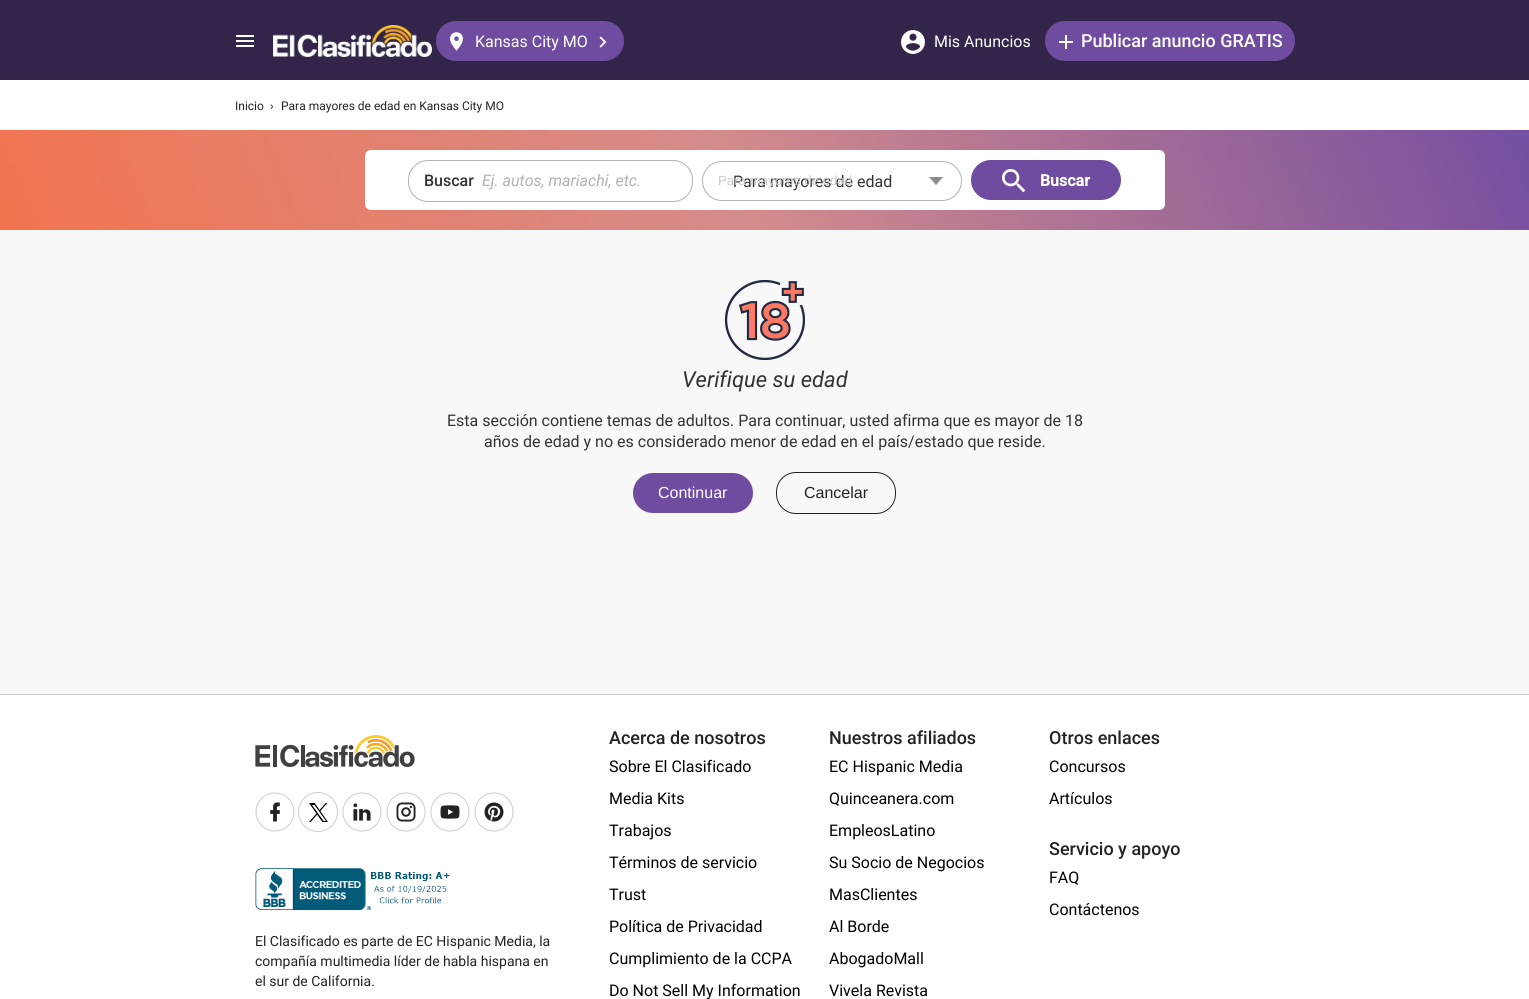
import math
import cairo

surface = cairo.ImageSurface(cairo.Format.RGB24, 1529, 999)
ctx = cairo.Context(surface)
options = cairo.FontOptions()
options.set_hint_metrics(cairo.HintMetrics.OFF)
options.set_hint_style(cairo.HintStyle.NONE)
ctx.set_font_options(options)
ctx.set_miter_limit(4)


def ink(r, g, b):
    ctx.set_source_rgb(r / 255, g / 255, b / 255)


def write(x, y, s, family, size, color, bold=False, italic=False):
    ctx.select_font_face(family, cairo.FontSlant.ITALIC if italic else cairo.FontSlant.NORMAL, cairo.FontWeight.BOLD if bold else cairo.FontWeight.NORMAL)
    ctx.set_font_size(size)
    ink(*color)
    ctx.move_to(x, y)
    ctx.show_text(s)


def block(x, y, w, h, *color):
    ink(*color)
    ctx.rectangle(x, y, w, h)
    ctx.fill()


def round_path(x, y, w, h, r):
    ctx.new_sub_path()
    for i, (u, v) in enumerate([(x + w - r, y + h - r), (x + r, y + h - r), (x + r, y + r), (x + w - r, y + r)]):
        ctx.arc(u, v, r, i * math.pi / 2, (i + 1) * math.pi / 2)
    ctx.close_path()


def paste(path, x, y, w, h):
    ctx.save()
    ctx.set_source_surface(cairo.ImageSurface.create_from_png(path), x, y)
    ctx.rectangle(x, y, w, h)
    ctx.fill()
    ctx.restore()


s1 = dict(family="Roboto", size=16, color=(255, 255, 255))
s2 = dict(family="Roboto Medium", size=18, color=(255, 255, 255))
s3 = dict(family="Roboto", size=12, color=(35, 35, 35))
s4 = dict(family="Roboto Medium", size=16, color=(51, 51, 51))
s5 = dict(family="Roboto", size=16, color=(178, 178, 178), italic=True)
s6 = dict(family="Roboto", size=16, color=(51, 51, 51))
s7 = dict(family="Liberation Sans", size=13.25, color=(202, 202, 202))
s8 = dict(family="Roboto", size=16, color=(255, 255, 255), bold=True)
s9 = dict(family="Roboto", size=22, color=(51, 51, 51), italic=True)
s10 = dict(family="Liberation Sans", size=16, color=(255, 255, 255))
s11 = dict(family="Liberation Sans", size=16, color=(35, 35, 35))
s12 = dict(family="Roboto Medium", size=18, color=(35, 35, 35))
s13 = dict(family="Roboto", size=16, color=(0, 0, 0))
s14 = dict(family="Roboto", size=14, color=(35, 35, 35))

ink(248, 248, 248)
ctx.paint()
block(0, 0, 1529, 80, 50, 37, 73)
paste("pic1.png", 236, 35, 18, 12)
paste("pic2.png", 273, 25, 159, 32)
ink(112, 76, 161)
round_path(436, 21, 188, 40, 20)
ctx.fill()
paste("pic3.png", 450, 32, 13, 19)
write(475, 47, "Kansas City MO", **s1)
paste("pic4.png", 599, 36, 8, 12)
paste("pic5.png", 901, 30, 24, 24)
write(934, 47, "Mis Anuncios", **s1)
ink(112, 76, 161)
round_path(1045, 21, 250, 40, 20)
ctx.fill()
paste("pic6.png", 1059, 35, 14, 14)
write(1081, 47, "Publicar anuncio GRATIS", **s2)
block(0, 80, 1529, 50, 255, 255, 255)
write(235, 110, "Inicio", **s3)
write(270, 110, "›", **s3)
write(281, 110, "Para mayores de edad en Kansas City MO", **s3)
paste("pic7.png", 0, 130, 1529, 100)
ink(255, 255, 255)
round_path(365, 150, 800, 60, 6)
ctx.fill()
round_path(408.5, 160.5, 284, 41, 19.5)
ink(178, 178, 178)
ctx.set_line_width(1)
ctx.stroke()
write(424, 186, "Buscar", **s4)
write(482, 186, "Ej. autos, mariachi, etc.", **s5)
round_path(702.5, 161.5, 259, 39, 19.5)
ctx.stroke()
write(733, 187, "Para mayores de edad", **s6)
write(718, 185, "Para mayores de edad", **s7)
ink(140, 140, 140)
ctx.new_path()
ctx.move_to(929, 177)
ctx.line_to(943, 177)
ctx.line_to(936, 185)
ctx.close_path()
ctx.fill()
ink(112, 76, 161)
round_path(971, 160, 150, 40, 20)
ctx.fill()
paste("pic8.png", 1002, 169, 24, 24)
write(1040, 186, "Buscar", **s8)
paste("pic9.png", 725, 280, 80, 80)
write(682, 387, "Verifique su edad", **s9)
write(447, 426, "Esta sección contiene temas de adultos. Para continuar, usted afirma que es mayor de 18", **s6)
write(484, 447, "años de edad y no es considerado menor de edad en el país/estado que reside.", **s6)
ink(112, 76, 161)
round_path(633, 473, 120, 40, 20)
ctx.fill()
write(658, 498, "Continuar", **s10)
round_path(776.5, 472.5, 119, 41, 19.5)
ink(35, 35, 35)
ctx.stroke()
write(804, 498, "Cancelar", **s11)
block(0, 695, 1529, 304, 255, 255, 255)
block(0, 694, 1529, 1, 204, 204, 204)
write(609, 744, "Acerca de nosotros", **s12)
write(609, 772, "Sobre El Clasificado", **s13)
write(609, 804, "Media Kits", **s13)
write(609, 836, "Trabajos", **s13)
write(609, 868, "Términos de servicio", **s13)
write(609, 900, "Trust", **s13)
write(609, 932, "Política de Privacidad", **s13)
write(609, 964, "Cumplimiento de la CCPA", **s13)
write(609, 996, "Do Not Sell My Information", **s13)
write(829, 744, "Nuestros afiliados", **s12)
write(829, 772, "EC Hispanic Media", **s13)
write(829, 804, "Quinceanera.com", **s13)
write(829, 836, "EmpleosLatino", **s13)
write(829, 868, "Su Socio de Negocios", **s13)
write(829, 900, "MasClientes", **s13)
write(829, 932, "Al Borde", **s13)
write(829, 964, "AbogadoMall", **s13)
write(829, 996, "Vivela Revista", **s13)
write(1049, 744, "Otros enlaces", **s12)
write(1049, 772, "Concursos", **s13)
write(1049, 804, "Artículos", **s13)
write(1049, 855, "Servicio y apoyo", **s12)
write(1049, 883, "FAQ", **s13)
write(1049, 915, "Contáctenos", **s13)
paste("pic10.png", 255, 735, 160, 32)
paste("pic11.png", 255, 792, 40, 40)
paste("pic12.png", 298, 792, 40, 40)
paste("pic13.png", 342, 792, 40, 40)
paste("pic14.png", 386, 792, 40, 40)
paste("pic15.png", 430, 792, 40, 40)
paste("pic16.png", 474, 792, 40, 40)
paste("pic17.png", 255, 868, 195, 42)
write(255, 946, "El Clasificado es parte de EC Hispanic Media, la", **s14)
write(255, 966, "compañía multimedia líder de habla hispana en", **s14)
write(255, 986, "el sur de California.", **s14)
surface.write_to_png("screenshot.png")
